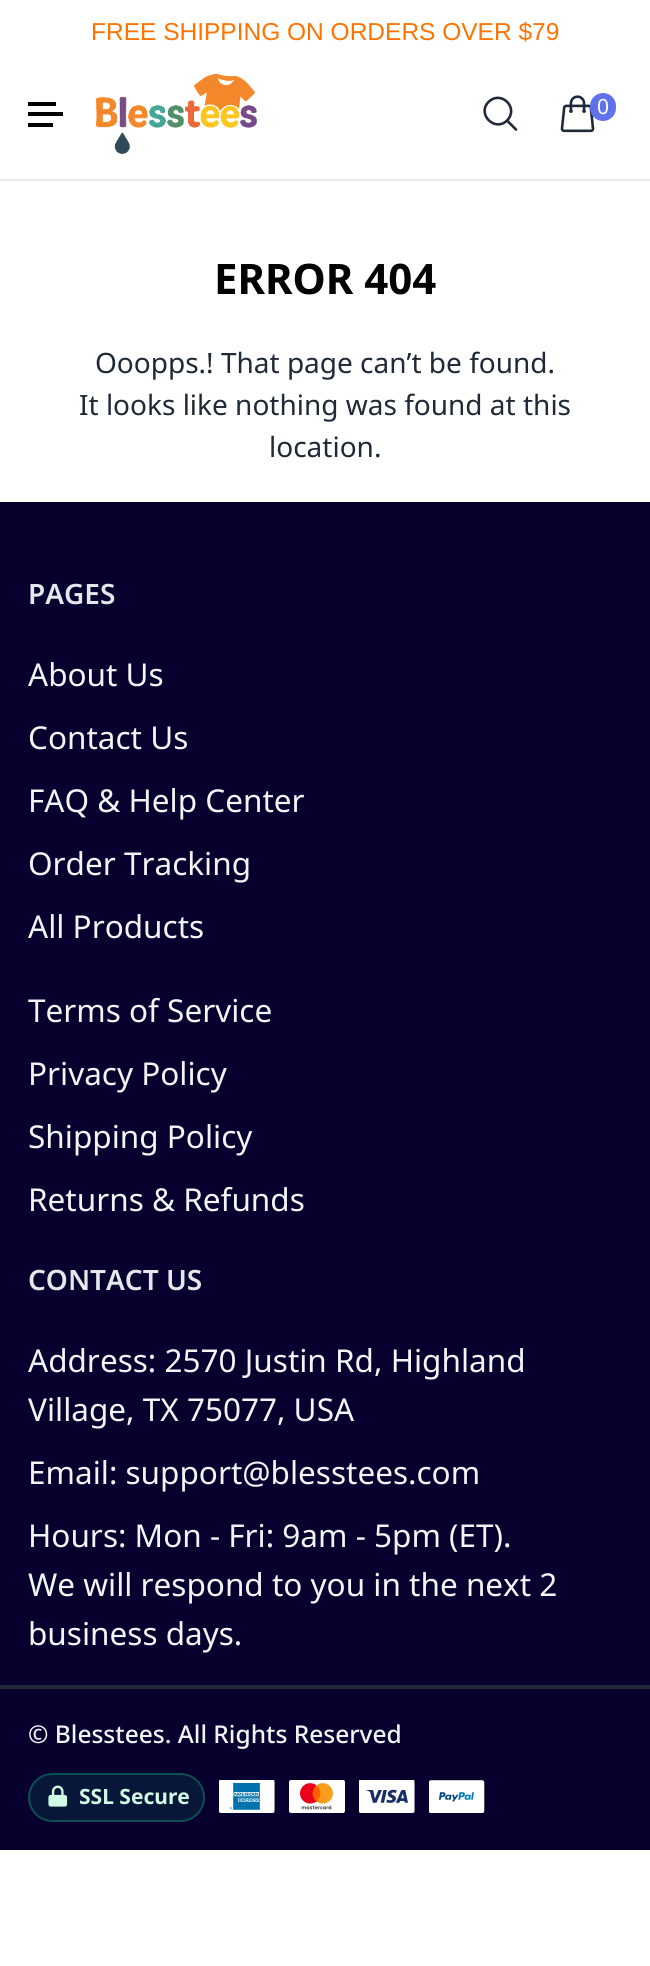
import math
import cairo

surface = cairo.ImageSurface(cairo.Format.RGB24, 650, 1966)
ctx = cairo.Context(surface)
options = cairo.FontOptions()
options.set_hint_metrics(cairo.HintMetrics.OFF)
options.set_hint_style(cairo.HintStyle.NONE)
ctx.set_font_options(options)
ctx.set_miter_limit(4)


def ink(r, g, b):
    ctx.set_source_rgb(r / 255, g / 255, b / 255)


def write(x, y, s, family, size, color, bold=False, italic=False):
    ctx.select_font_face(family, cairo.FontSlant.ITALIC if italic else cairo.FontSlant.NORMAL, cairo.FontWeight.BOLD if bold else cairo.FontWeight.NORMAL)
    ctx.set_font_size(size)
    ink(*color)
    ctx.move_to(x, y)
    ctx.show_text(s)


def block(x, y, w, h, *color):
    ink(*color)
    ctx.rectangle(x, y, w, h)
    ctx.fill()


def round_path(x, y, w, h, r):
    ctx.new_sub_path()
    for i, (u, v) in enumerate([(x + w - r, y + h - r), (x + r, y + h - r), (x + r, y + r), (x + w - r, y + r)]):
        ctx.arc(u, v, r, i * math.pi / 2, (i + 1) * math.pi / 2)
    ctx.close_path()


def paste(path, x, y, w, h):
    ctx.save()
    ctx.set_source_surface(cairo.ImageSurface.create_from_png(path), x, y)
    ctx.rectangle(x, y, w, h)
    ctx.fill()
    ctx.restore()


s1 = dict(family="Liberation Sans", size=24.5, color=(255, 115, 0))
s2 = dict(family="Noto Sans", size=21, color=(255, 255, 255))
s3 = dict(family="Noto Sans", size=42, color=(0, 0, 0), bold=True)
s4 = dict(family="Noto Sans", size=28, color=(31, 41, 55))
s5 = dict(family="Noto Sans SemiBold", size=28, color=(229, 231, 235))
s6 = dict(family="Noto Sans", size=31.5, color=(243, 244, 246))
s7 = dict(family="Noto Sans Medium", size=24.5, color=(243, 244, 246))
s8 = dict(family="Noto Sans", size=21, color=(209, 250, 229), bold=True)

ink(255, 255, 255)
ctx.paint()
block(0, 179, 650, 2, 234, 236, 239)
write(91, 40, "FREE SHIPPING ON ORDERS OVER $79", **s1)
block(28, 102, 28, 4, 0, 0, 0)
block(28, 112, 35, 4, 0, 0, 0)
block(28, 123, 25, 4, 0, 0, 0)
paste("pic1.png", 96, 73, 162, 81)
ctx.new_path()
ctx.move_to(516, 129.5)
ctx.line_to(507, 120.5)
ctx.move_to(507, 120.5)
ctx.curve_to(519.5, 108, 501, 89.5, 488.5, 102)
ctx.curve_to(476.5, 114, 495, 132.5, 507, 120.5)
ctx.close_path()
ink(31, 41, 55)
ctx.set_line_width(2.6)
ctx.set_line_cap(cairo.LineCap.ROUND)
ctx.set_line_join(cairo.LineJoin.ROUND)
ctx.stroke()
paste("pic2.png", 560, 95, 35, 38)
ink(96, 113, 236)
round_path(590, 93, 26, 28, 13)
ctx.fill()
write(597, 114, "0", **s2)
write(214, 294, "ERROR 404", **s3)
write(95, 373, "Ooopps.! That page can’t be found.", **s4)
write(79, 415, "It looks like nothing was found at this", **s4)
write(269, 457, "location.", **s4)
block(0, 502, 650, 1348, 7, 0, 47)
write(28, 604, "PAGES", **s5)
write(28, 686, "About Us", **s6)
write(28, 749, "Contact Us", **s6)
write(28, 812, "FAQ & Help Center", **s6)
write(28, 875, "Order Tracking", **s6)
write(28, 938, "All Products", **s6)
write(28, 1022, "Terms of Service", **s6)
write(28, 1085, "Privacy Policy", **s6)
write(28, 1148, "Shipping Policy", **s6)
write(28, 1211, "Returns & Refunds", **s6)
write(28, 1290, "CONTACT US", **s5)
write(28, 1372, "Address: 2570 Justin Rd, Highland", **s6)
write(28, 1421, "Village, TX 75077, USA", **s6)
write(28, 1484, "Email: support@blesstees.com", **s6)
write(28, 1547, "Hours: Mon - Fri: 9am - 5pm (ET).", **s6)
write(28, 1596, "We will respond to you in the next 2", **s6)
write(28, 1645, "business days.", **s6)
block(0, 1685, 650, 4, 31, 41, 55)
write(28, 1743, "© Blesstees. All Rights Reserved", **s7)
ink(8, 22, 57)
round_path(28, 1773, 177, 49, 24.5)
ctx.fill()
round_path(29, 1774, 175, 47, 23.5)
ctx.set_source_rgba(0.063, 0.725, 0.506, 0.35)
ctx.set_line_width(2)
ctx.set_line_cap(cairo.LineCap.BUTT)
ctx.set_line_join(cairo.LineJoin.MITER)
ctx.stroke()
paste("pic3.png", 48, 1785, 20, 22)
write(79, 1804, "SSL Secure", **s8)
paste("pic4.png", 219, 1780, 56, 33)
paste("pic5.png", 289, 1780, 56, 33)
paste("pic6.png", 359, 1780, 56, 33)
paste("pic7.png", 429, 1780, 56, 33)
surface.write_to_png("screenshot.png")
